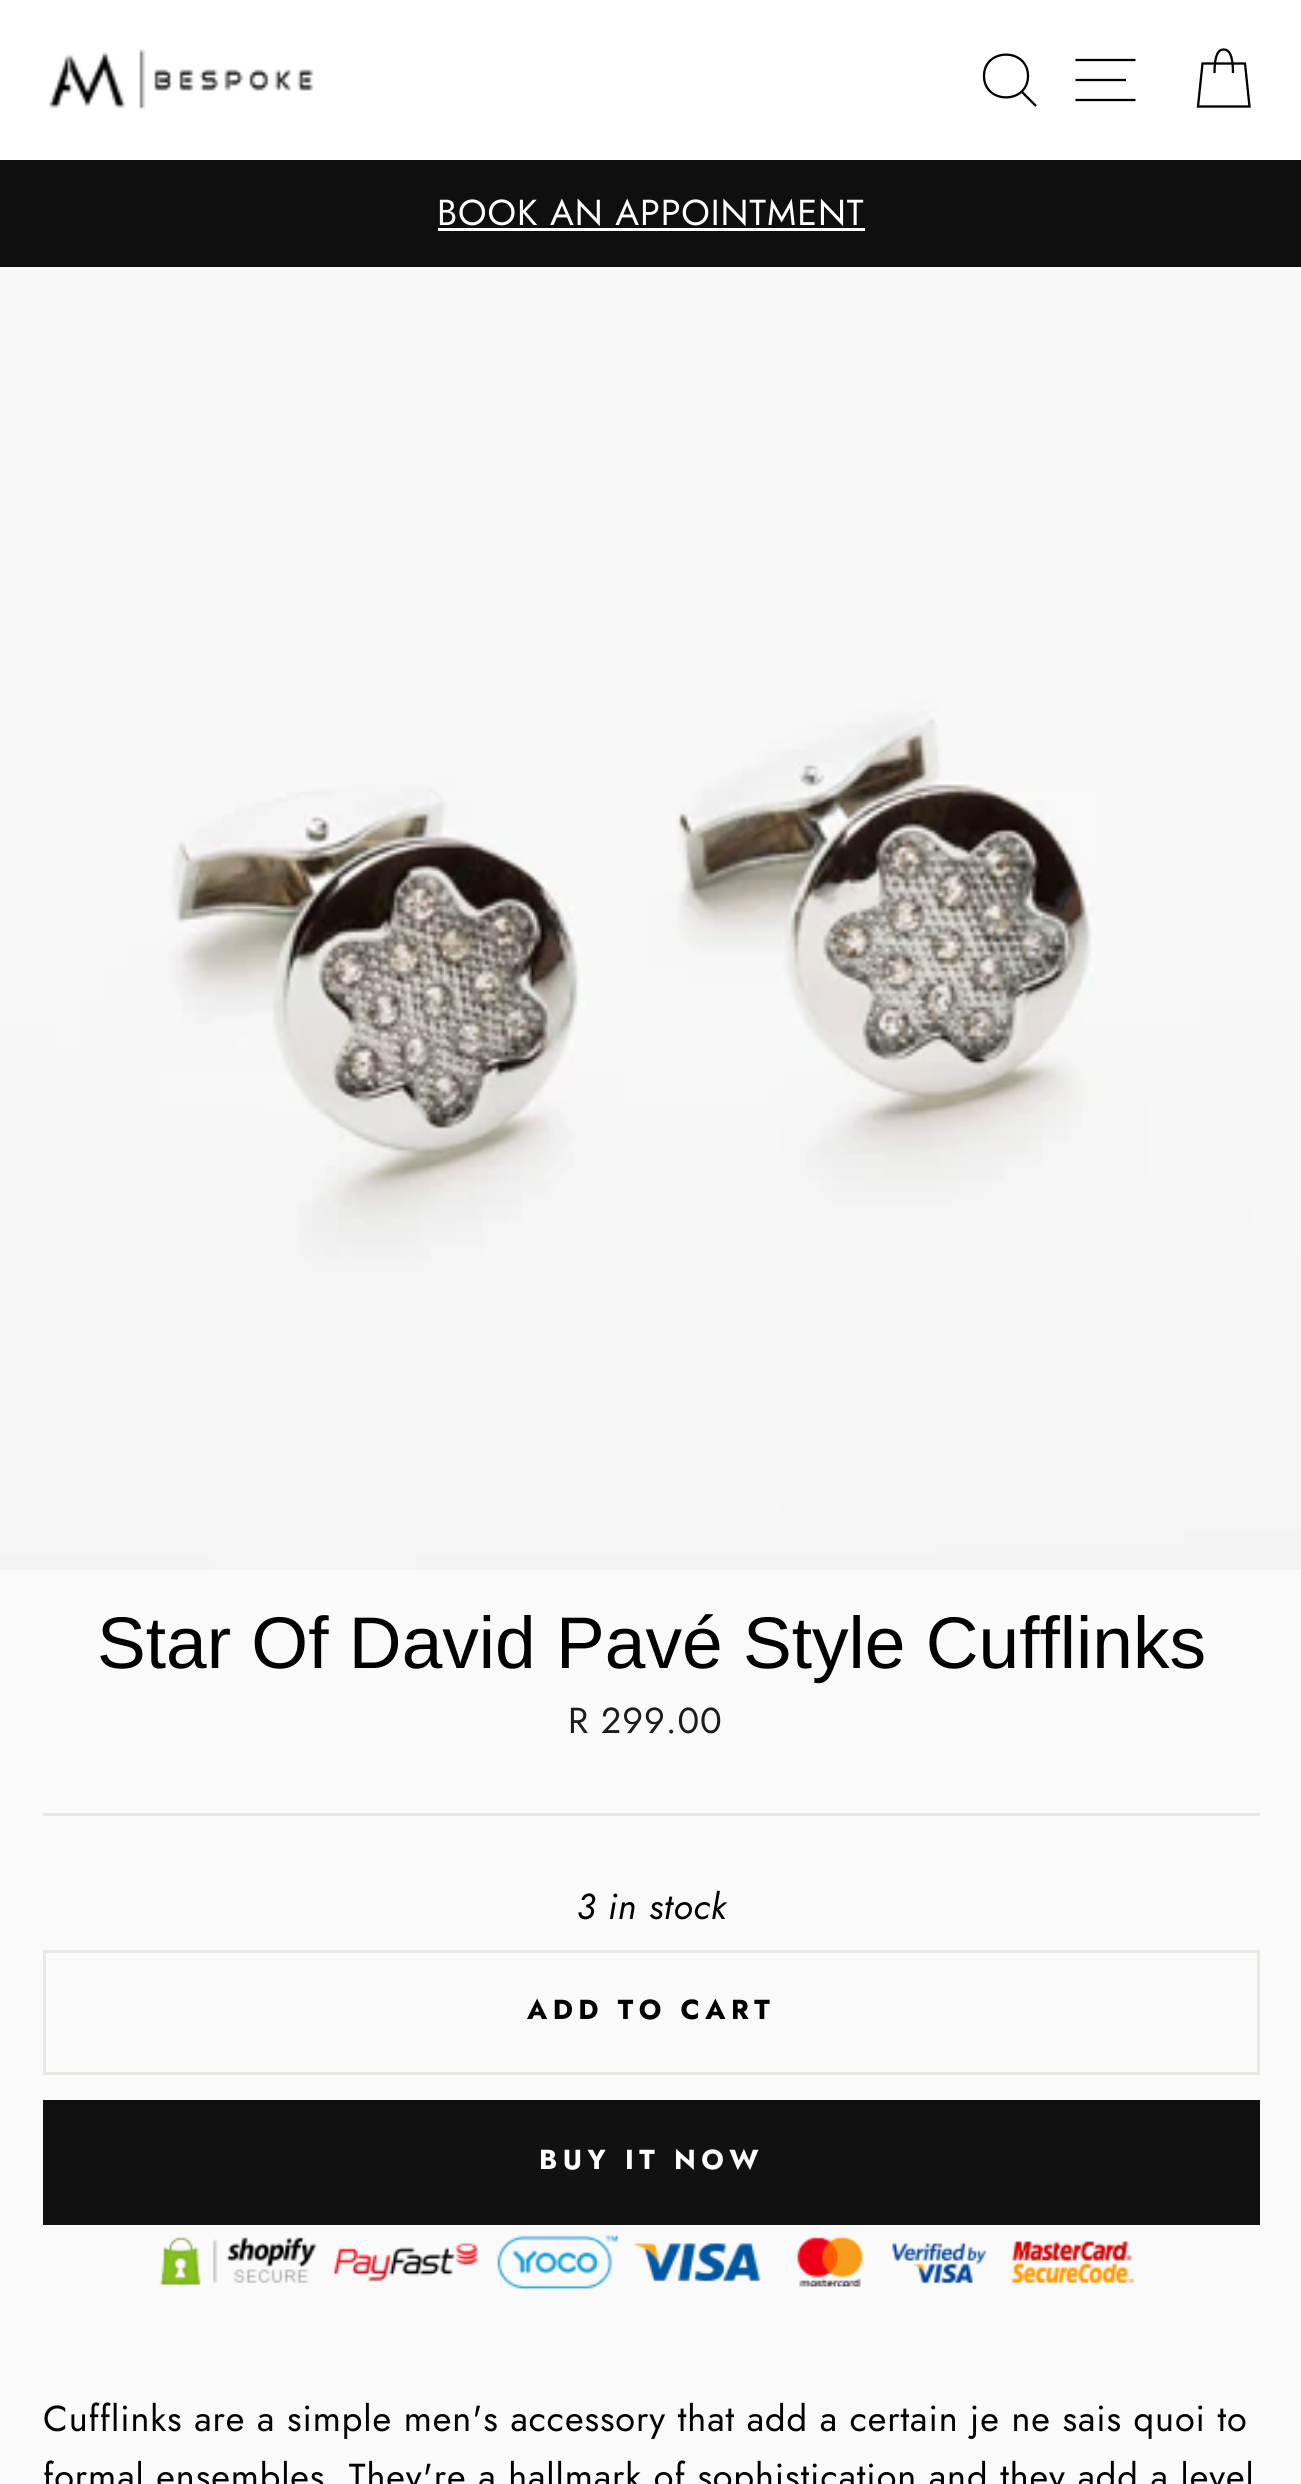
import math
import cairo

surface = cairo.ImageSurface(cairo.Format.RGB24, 1301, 2484)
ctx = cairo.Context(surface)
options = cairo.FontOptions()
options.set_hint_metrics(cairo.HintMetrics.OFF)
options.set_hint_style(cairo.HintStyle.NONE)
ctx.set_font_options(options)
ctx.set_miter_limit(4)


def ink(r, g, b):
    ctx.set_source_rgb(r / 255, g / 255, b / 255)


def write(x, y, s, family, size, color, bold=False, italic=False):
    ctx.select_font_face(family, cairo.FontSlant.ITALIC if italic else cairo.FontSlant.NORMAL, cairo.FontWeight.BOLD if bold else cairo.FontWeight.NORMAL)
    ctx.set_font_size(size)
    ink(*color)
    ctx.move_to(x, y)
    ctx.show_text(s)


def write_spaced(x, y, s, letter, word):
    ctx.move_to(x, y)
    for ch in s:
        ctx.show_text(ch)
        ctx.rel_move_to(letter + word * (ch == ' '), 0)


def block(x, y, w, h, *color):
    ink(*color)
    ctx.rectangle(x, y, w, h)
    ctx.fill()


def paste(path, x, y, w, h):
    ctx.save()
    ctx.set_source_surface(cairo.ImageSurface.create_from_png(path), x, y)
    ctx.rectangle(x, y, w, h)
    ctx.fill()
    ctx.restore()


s1 = dict(family="Arimo", size=73.1, color=(0, 0, 0))

ink(250, 250, 250)
ctx.paint()
block(0, 0, 1301, 160, 255, 255, 255)
paste("pic1.png", 49, 49, 265, 62)
ctx.new_path()
ctx.move_to(1028, 76)
ctx.curve_to(1028, 104.5, 984, 104.5, 984, 76)
ctx.curve_to(984, 47.5, 1028, 47.5, 1028, 76)
ctx.close_path()
ctx.move_to(1036, 106)
ctx.line_to(1021.5, 91.5)
ink(0, 0, 0)
ctx.set_line_width(2.3)
ctx.stroke()
ctx.new_path()
ctx.move_to(1075.5, 60)
ctx.line_to(1135.5, 60)
ctx.move_to(1075.5, 80)
ctx.line_to(1126, 80)
ctx.move_to(1075.5, 100)
ctx.line_to(1135.5, 100)
ctx.stroke()
ctx.new_path()
ctx.move_to(1214.5, 73)
ctx.curve_to(1214.5, 54.5, 1218.5, 49.5, 1223.5, 49.5)
ctx.curve_to(1229, 49.5, 1233, 54.5, 1233, 73)
ctx.move_to(1202.5, 63.5)
ctx.line_to(1245, 63.5)
ctx.line_to(1249.5, 106.5)
ctx.line_to(1198, 106.5)
ctx.close_path()
ctx.stroke()
block(0, 160, 1301, 107, 15, 15, 15)
ctx.select_font_face("Jost")
ctx.set_font_size(36.1)
ink(255, 255, 255)
write_spaced(437, 225, "BOOK AN APPOINTMENT", 0.9, 0)
block(438, 228, 427, 3, 255, 255, 255)
paste("pic2.png", 0, 267, 1301, 1303)
write(97, 1668, "Star Of David Pavé Style Cufflinks", **s1)
ctx.select_font_face("Jost")
ctx.set_font_size(36.1)
ink(28, 29, 29)
write_spaced(568, 1733, "R 299.00", 0.9, 0)
block(43, 1813, 1217, 3, 232, 232, 225)
ctx.select_font_face("Jost", cairo.FontSlant.ITALIC)
ink(0, 0, 0)
write_spaced(576, 1919, "3 in stock", 0.9, 0)
ctx.rectangle(44.5, 1951.5, 1214, 122)
ink(232, 232, 225)
ctx.set_line_width(3)
ctx.stroke()
ctx.select_font_face("Jost", cairo.FontSlant.NORMAL, cairo.FontWeight.BOLD)
ctx.set_font_size(27.5)
ink(0, 0, 0)
write_spaced(527, 2019, "ADD TO CART", 5.5, 0)
block(43, 2100, 1217, 125, 17, 17, 17)
ink(255, 255, 255)
write_spaced(539, 2169, "BUY IT NOW", 5.5, 0)
paste("pic3.png", 159, 2234, 975, 56)
ctx.select_font_face("Jost")
ctx.set_font_size(36.1)
ink(0, 0, 0)
write_spaced(43, 2431, "Cufflinks are a simple men's accessory that add a certain je ne sais quoi to", 0.9, 0)
write_spaced(43, 2489, "formal ensembles. They're a hallmark of sophistication and they add a level", 0.9, 0)
surface.write_to_png("screenshot.png")
